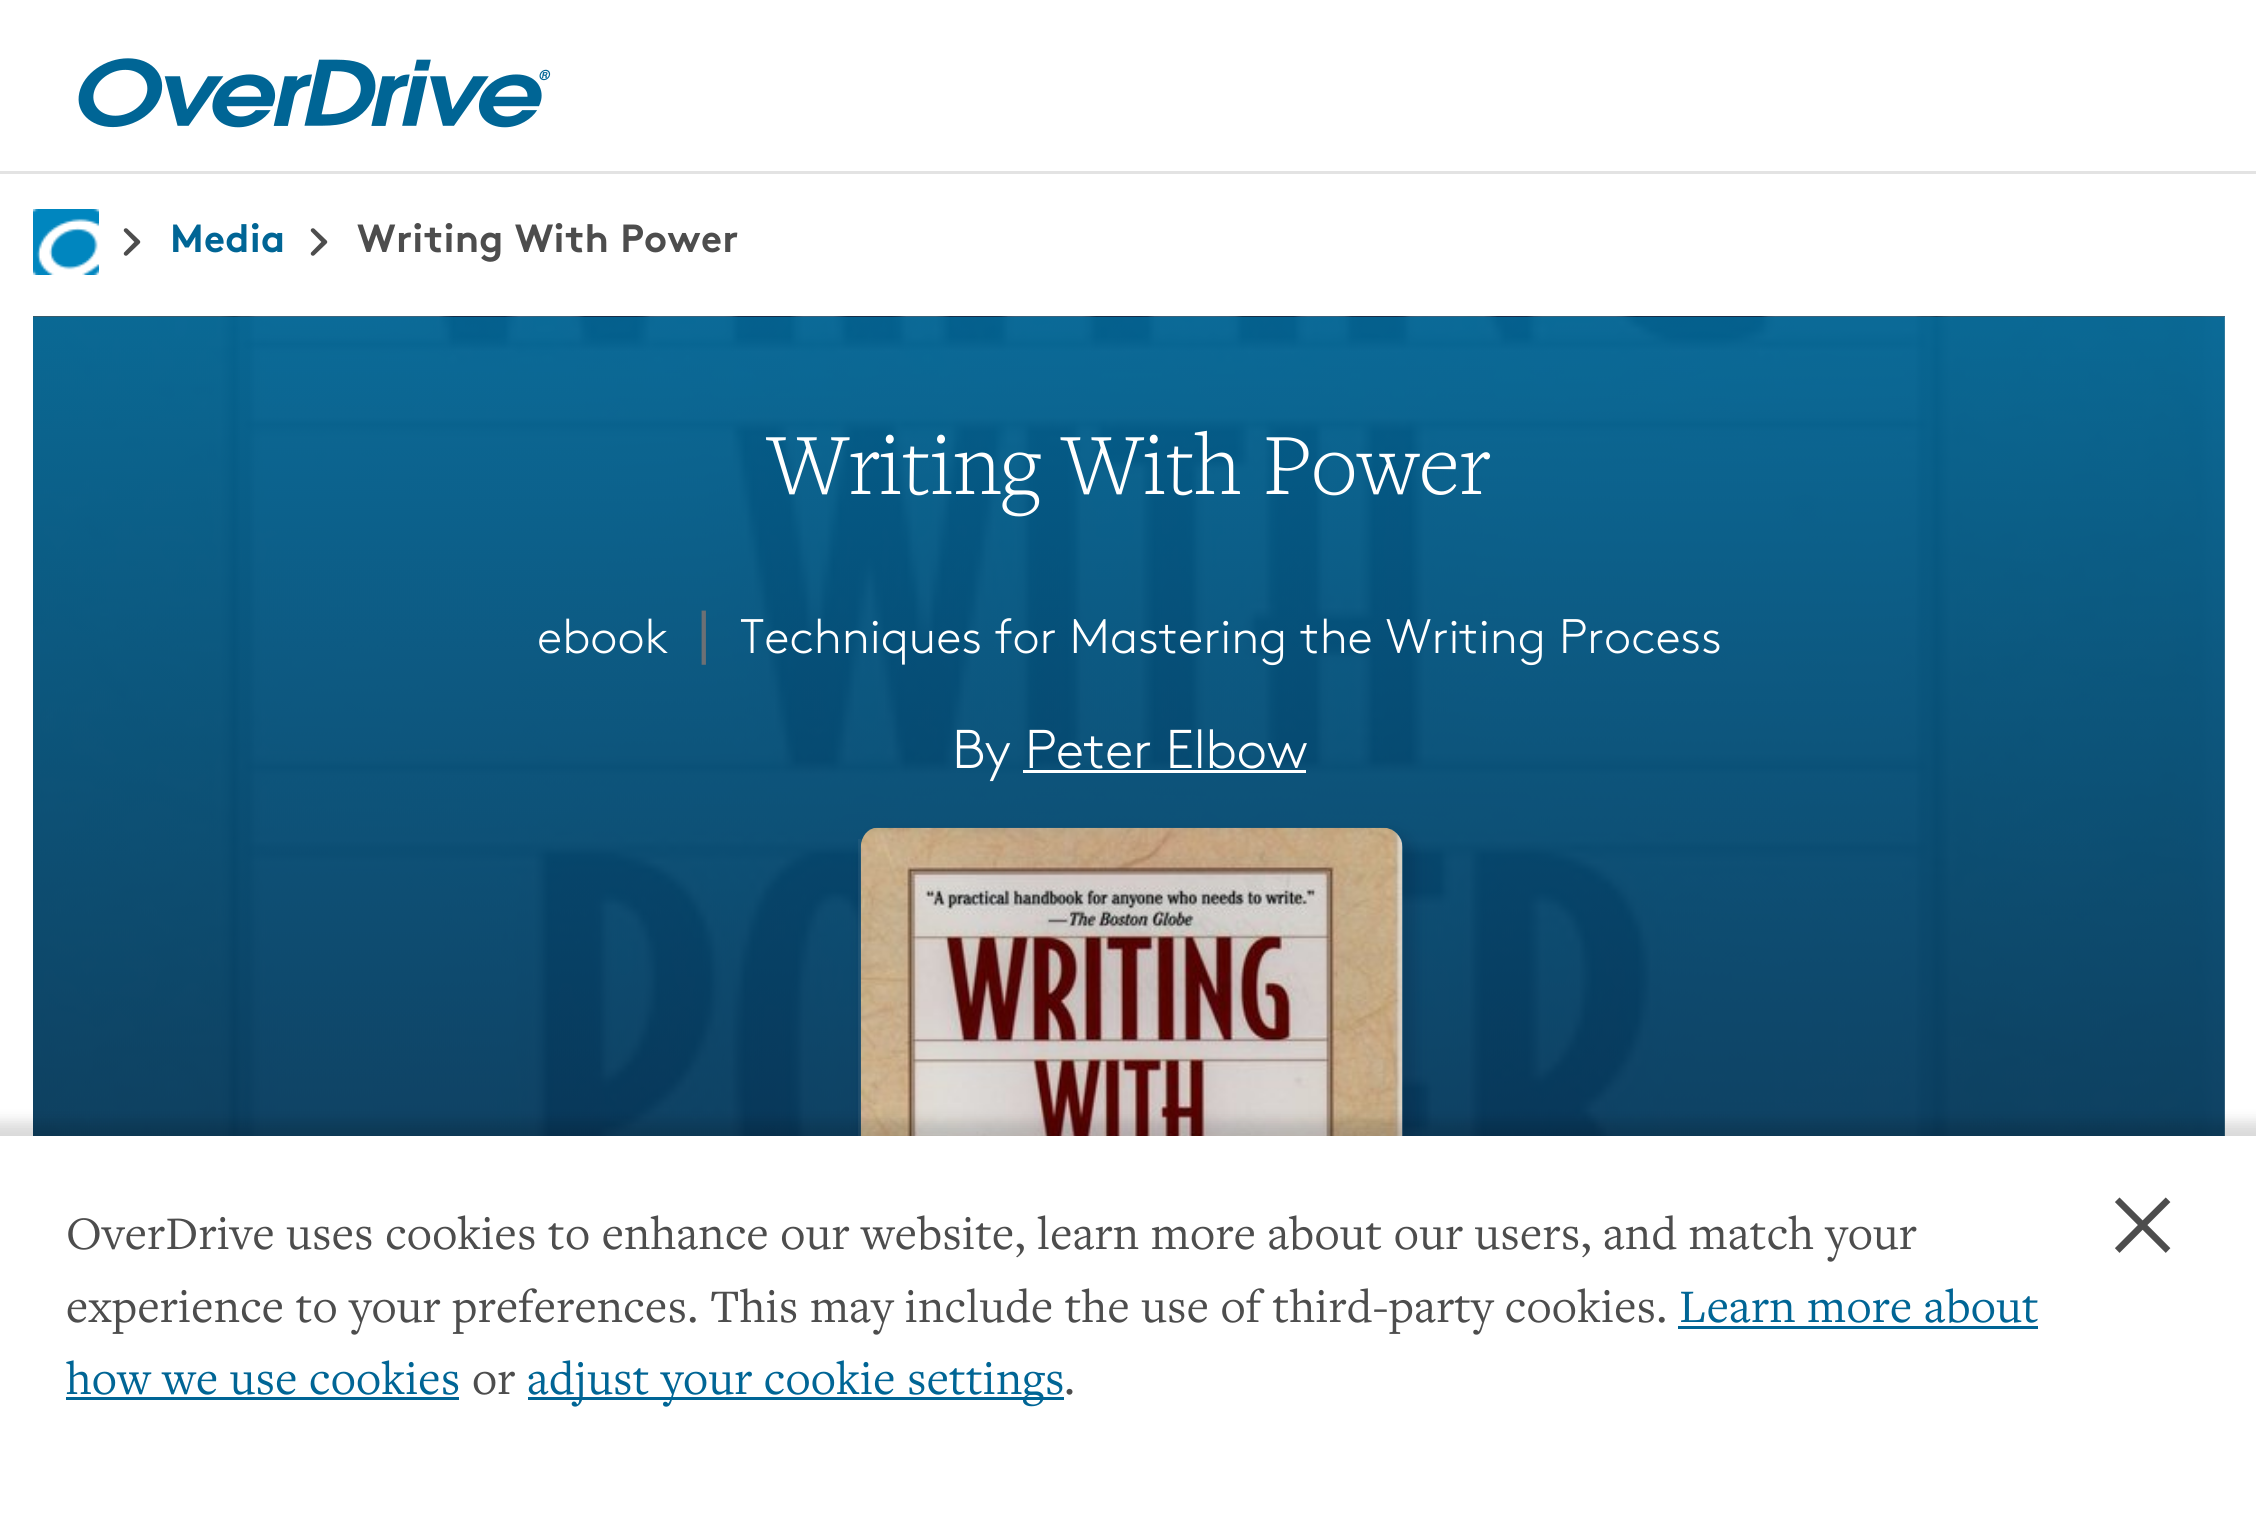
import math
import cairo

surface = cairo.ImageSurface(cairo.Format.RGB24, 2256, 1534)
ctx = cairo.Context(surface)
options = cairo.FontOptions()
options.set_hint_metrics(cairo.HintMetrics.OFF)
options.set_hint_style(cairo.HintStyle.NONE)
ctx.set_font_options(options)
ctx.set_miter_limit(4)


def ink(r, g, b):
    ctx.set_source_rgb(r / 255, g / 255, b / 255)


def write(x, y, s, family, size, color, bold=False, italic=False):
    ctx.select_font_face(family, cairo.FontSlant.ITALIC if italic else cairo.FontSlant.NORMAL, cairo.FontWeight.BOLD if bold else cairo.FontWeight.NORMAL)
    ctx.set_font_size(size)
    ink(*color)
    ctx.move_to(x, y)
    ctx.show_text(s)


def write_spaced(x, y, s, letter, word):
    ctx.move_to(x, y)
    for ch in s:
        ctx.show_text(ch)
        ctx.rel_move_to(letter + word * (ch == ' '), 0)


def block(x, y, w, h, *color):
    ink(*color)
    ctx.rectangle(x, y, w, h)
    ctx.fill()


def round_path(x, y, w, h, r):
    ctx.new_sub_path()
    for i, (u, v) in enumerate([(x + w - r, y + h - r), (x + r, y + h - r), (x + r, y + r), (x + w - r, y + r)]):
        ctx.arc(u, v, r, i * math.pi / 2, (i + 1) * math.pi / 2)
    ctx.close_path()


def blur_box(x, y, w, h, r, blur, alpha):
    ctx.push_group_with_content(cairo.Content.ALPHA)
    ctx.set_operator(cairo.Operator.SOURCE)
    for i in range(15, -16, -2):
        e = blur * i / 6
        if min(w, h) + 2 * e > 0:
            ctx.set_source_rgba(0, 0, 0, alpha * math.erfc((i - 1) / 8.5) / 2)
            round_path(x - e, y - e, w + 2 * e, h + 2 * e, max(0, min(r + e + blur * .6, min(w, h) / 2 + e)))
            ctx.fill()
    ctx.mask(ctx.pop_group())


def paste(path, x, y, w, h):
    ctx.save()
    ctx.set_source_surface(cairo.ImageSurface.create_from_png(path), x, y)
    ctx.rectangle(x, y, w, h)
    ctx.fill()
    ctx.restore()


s1 = dict(family="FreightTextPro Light", size=90.75, color=(255, 255, 255))
s2 = dict(family="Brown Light", size=48.4, color=(255, 255, 255))
s3 = dict(family="DejaVu Sans", size=55, color=(109, 112, 116))
s4 = dict(family="FreightTextPro", size=136, color=(77, 77, 77))

ink(255, 255, 255)
ctx.paint()
block(0, 171, 2256, 3, 227, 227, 227)
paste("pic1.png", 78, 58, 473, 70)
paste("pic2.png", 33, 209, 66, 66)
paste("pic3.png", 123, 228, 18, 28)
ctx.select_font_face("Brown", cairo.FontSlant.NORMAL, cairo.FontWeight.BOLD)
ctx.set_font_size(39.25)
ink(0, 101, 149)
write_spaced(170, 252, "Media", 0.3, 0)
paste("pic3.png", 310, 228, 18, 28)
ink(77, 77, 77)
write_spaced(357, 252, "Writing With Power", 0.3, 0)
block(33, 316, 2192, 820, 0, 101, 149)
paste("pic4.png", 33, 316, 2192, 820)
write(767, 494, "Writing With Power", **s1)
write(537, 653, "ebook", **s2)
write(690, 653, "∣", **s3)
write(740, 653, "Techniques for Mastering the Writing Process", **s2)
ctx.set_font_size(54.5)
write_spaced(952, 768, "By Peter Elbow", -0.5, 0)
block(1023, 770, 283, 3, 255, 255, 255)
ctx.save()
ctx.set_fill_rule(cairo.FillRule.EVEN_ODD)
ctx.new_path()
ctx.move_to(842, 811)
ctx.line_to(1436, 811)
ctx.line_to(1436, 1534)
ctx.line_to(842, 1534)
ctx.close_path()
ctx.move_to(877, 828)
ctx.line_to(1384, 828)
ctx.curve_to(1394.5, 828, 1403, 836.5, 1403, 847)
ctx.line_to(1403, 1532)
ctx.curve_to(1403, 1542.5, 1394.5, 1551, 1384, 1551)
ctx.line_to(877, 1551)
ctx.curve_to(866.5, 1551, 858, 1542.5, 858, 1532)
ctx.line_to(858, 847)
ctx.curve_to(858, 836.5, 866.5, 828, 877, 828)
ctx.close_path()
ctx.clip()
ink(6, 35, 64)
blur_box(864, 833, 550, 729, 22, 7, 0.25)
ctx.restore()
ctx.set_source_rgba(0.655, 0.663, 0.675, 0.1)
ctx.rectangle(858, 839, 3, 297)
ctx.fill()
paste("pic5.png", 860, 827, 543, 309)
ink(0, 0, 0)
blur_box(-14, 1122, 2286, 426, 0, 7, 0.15)
block(0, 1136, 2256, 398, 255, 255, 255)
ctx.select_font_face("FreightTextPro")
ctx.set_font_size(48.4)
ink(77, 77, 77)
write_spaced(66, 1249, "OverDrive uses cookies to enhance our website, learn more about our users, and match your", 0.3, 0)
write_spaced(66, 1322, "experience to your preferences. This may include the use of third-party cookies.", 0.3, 0)
ink(0, 101, 149)
write_spaced(1679, 1322, "Learn more about", 0.3, 0)
block(1678, 1326, 360, 3, 0, 101, 149)
write_spaced(66, 1394, "how we use cookies", 0.3, 0)
block(66, 1397, 393, 3, 0, 101, 149)
ink(77, 77, 77)
write_spaced(472, 1394, "or", 0.3, 0)
block(528, 1397, 536, 3, 0, 101, 149)
write_spaced(527, 1394, "adjust your cookie settings", 0.3, 0)
ink(77, 77, 77)
write_spaced(1064, 1394, ".", 0.3, 0)
write(2110, 1257, "×", **s4)
surface.write_to_png("screenshot.png")
